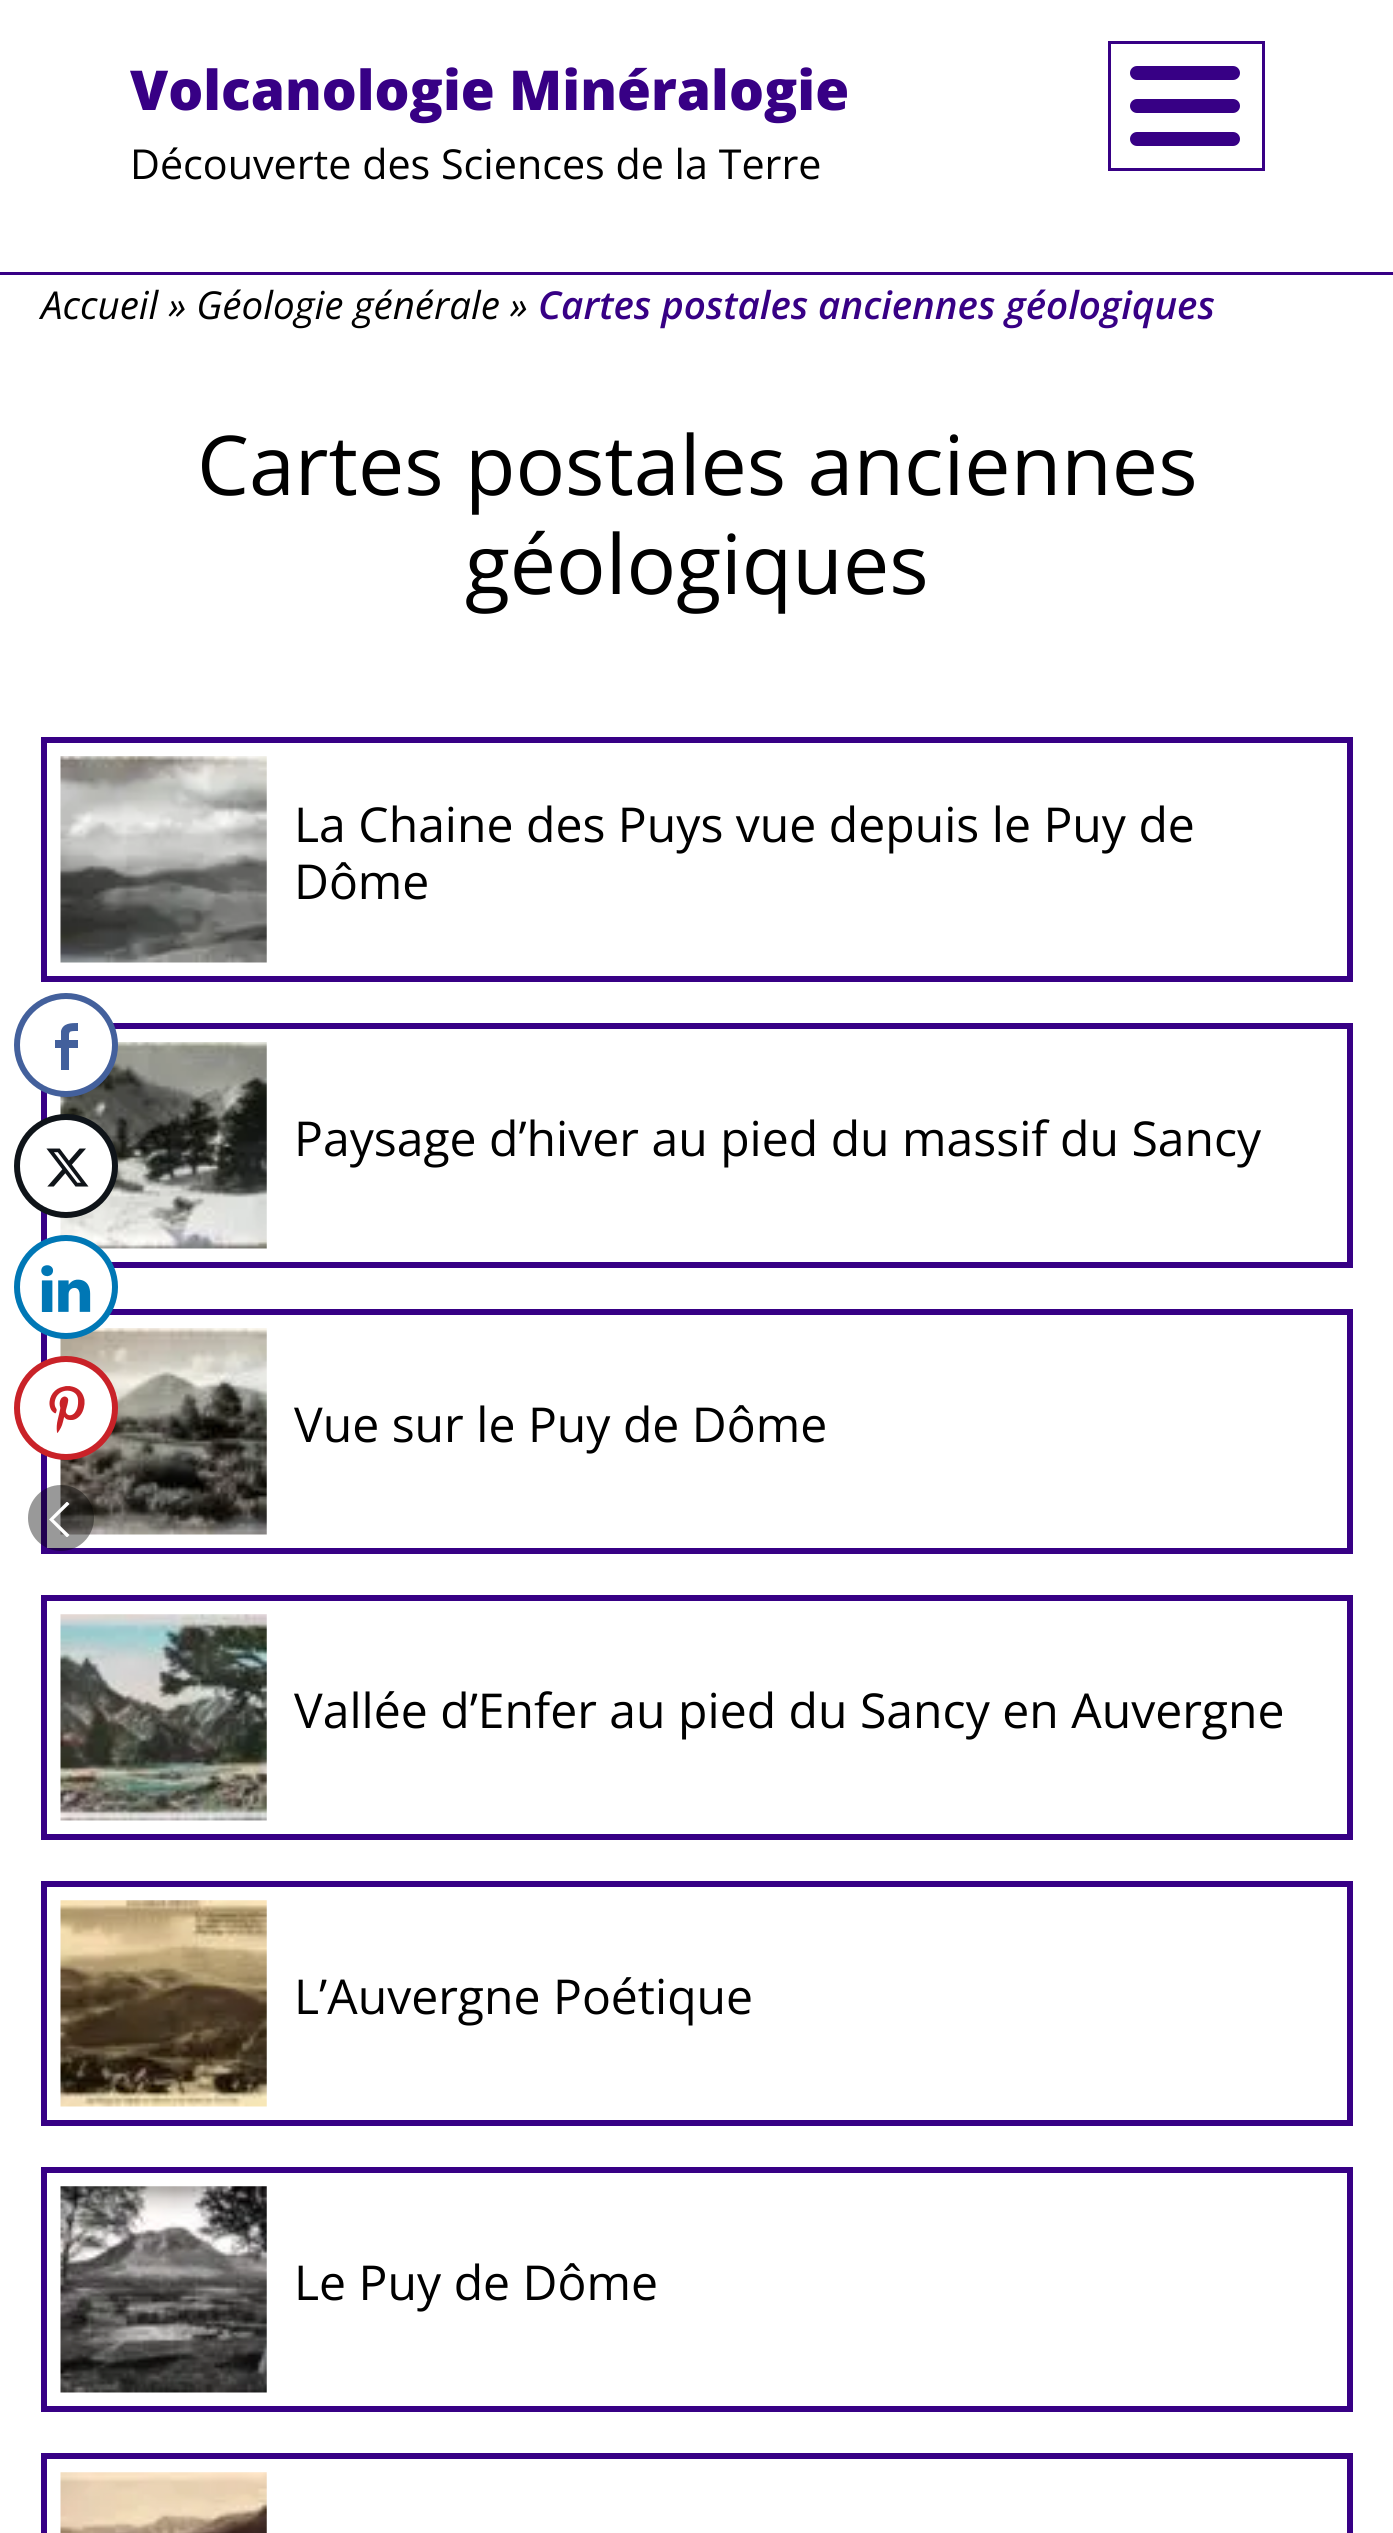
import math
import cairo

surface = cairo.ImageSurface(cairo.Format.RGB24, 1393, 2533)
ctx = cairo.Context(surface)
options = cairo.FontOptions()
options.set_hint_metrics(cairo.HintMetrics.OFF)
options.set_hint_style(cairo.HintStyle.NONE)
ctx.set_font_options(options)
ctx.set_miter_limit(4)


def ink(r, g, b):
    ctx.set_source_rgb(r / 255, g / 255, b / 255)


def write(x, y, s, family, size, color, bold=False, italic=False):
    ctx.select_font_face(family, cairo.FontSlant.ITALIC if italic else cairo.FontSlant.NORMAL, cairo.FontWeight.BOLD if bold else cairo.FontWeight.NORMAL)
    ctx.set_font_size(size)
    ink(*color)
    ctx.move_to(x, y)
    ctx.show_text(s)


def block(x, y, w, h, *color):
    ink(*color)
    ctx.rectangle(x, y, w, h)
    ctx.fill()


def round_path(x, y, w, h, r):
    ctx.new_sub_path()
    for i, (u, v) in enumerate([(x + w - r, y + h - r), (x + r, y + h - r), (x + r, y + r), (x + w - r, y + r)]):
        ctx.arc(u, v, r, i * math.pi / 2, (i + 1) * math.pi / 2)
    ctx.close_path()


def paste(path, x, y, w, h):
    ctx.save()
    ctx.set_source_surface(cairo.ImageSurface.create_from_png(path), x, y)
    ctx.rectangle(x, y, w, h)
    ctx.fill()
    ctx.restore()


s1 = dict(family="Open Sans ExtraBold", size=55, color=(55, 0, 133))
s2 = dict(family="Open Sans", size=41.25, color=(0, 0, 0))
s3 = dict(family="Open Sans", size=38.5, color=(0, 0, 0), italic=True)
s4 = dict(family="Open Sans SemiBold", size=38.5, color=(55, 0, 133), italic=True)
s5 = dict(family="Open Sans", size=82.5, color=(0, 0, 0))
s6 = dict(family="Open Sans", size=48.1, color=(0, 0, 0))

ink(255, 255, 255)
ctx.paint()
block(0, 272, 1393, 3, 55, 0, 133)
write(130, 110, "Volcanologie Minéralogie", **s1)
write(130, 179, "Découverte des Sciences de la Terre", **s2)
ctx.rectangle(1109.5, 42.5, 154, 127)
ink(55, 0, 133)
ctx.set_line_width(3)
ctx.stroke()
round_path(1130, 66, 110, 14, 7)
ctx.fill()
round_path(1130, 99, 110, 14, 7)
ctx.fill()
round_path(1130, 132, 110, 14, 7)
ctx.fill()
write(41, 319, "Accueil » Géologie générale »", **s3)
write(538, 319, "Cartes postales anciennes géologiques", **s4)
write(197, 495, "Cartes postales anciennes", **s5)
write(465, 594, "géologiques", **s5)
ctx.rectangle(44, 740, 1306, 239)
ink(55, 0, 133)
ctx.set_line_width(6)
ctx.stroke()
paste("pic1.png", 60, 756, 207, 207)
write(294, 842, "La Chaine des Puys vue depuis le Puy de", **s6)
write(294, 899, "Dôme", **s6)
ctx.rectangle(44, 1026, 1306, 239)
ink(55, 0, 133)
ctx.stroke()
paste("pic2.png", 60, 1042, 207, 207)
write(294, 1156, "Paysage d’hiver au pied du massif du Sancy", **s6)
ctx.rectangle(44, 1312, 1306, 239)
ink(55, 0, 133)
ctx.stroke()
paste("pic3.png", 60, 1328, 207, 207)
write(294, 1442, "Vue sur le Puy de Dôme", **s6)
ctx.rectangle(44, 1598, 1306, 239)
ink(55, 0, 133)
ctx.stroke()
paste("pic4.png", 60, 1614, 207, 207)
write(294, 1728, "Vallée d’Enfer au pied du Sancy en Auvergne", **s6)
ctx.rectangle(44, 1884, 1306, 239)
ink(55, 0, 133)
ctx.stroke()
paste("pic5.png", 60, 1900, 207, 207)
write(294, 2014, "L’Auvergne Poétique", **s6)
ctx.rectangle(44, 2170, 1306, 239)
ink(55, 0, 133)
ctx.stroke()
paste("pic6.png", 60, 2186, 207, 207)
write(294, 2300, "Le Puy de Dôme", **s6)
ctx.rectangle(44, 2456, 1306, 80)
ink(55, 0, 133)
ctx.stroke()
paste("pic7.png", 60, 2472, 207, 61)
ink(255, 255, 255)
ctx.arc(66, 1045, 49, 0, 2 * math.pi)
ctx.fill_preserve()
ink(67, 96, 156)
ctx.stroke()
ctx.new_path()
ctx.move_to(55, 1048)
ctx.line_to(55, 1040)
ctx.line_to(61, 1040)
ctx.line_to(61, 1031)
ctx.curve_to(63, 1023, 71, 1023, 78, 1023)
ctx.line_to(78, 1031)
ctx.curve_to(68, 1031, 69, 1031, 69, 1040)
ctx.line_to(78, 1040)
ctx.line_to(78, 1048)
ctx.line_to(69, 1048)
ctx.line_to(69, 1070)
ctx.line_to(61, 1070)
ctx.line_to(61, 1048)
ctx.close_path()
ctx.fill()
ink(255, 255, 255)
ctx.arc(66, 1166, 49, 0, 2 * math.pi)
ctx.fill_preserve()
ink(15, 20, 25)
ctx.stroke()
paste("pic8.png", 46, 1148, 43, 39)
ink(255, 255, 255)
ctx.arc(66, 1287, 49, 0, 2 * math.pi)
ctx.fill_preserve()
ink(0, 119, 181)
ctx.stroke()
paste("pic9.png", 41, 1265, 50, 47)
ink(255, 255, 255)
ctx.arc(66, 1408, 49, 0, 2 * math.pi)
ctx.fill_preserve()
ink(201, 34, 40)
ctx.stroke()
paste("pic10.png", 49, 1386, 36, 47)
ctx.set_source_rgba(0, 0, 0, 0.4)
ctx.arc(61, 1518, 33, 0, 2 * math.pi)
ctx.fill()
ctx.save()
ctx.rectangle(41, 1502, 36, 35)
ctx.clip()
ink(255, 255, 255)
ctx.new_path()
ctx.move_to(69.5, 1504)
ctx.line_to(67, 1501.5)
ctx.line_to(49, 1519.5)
ctx.line_to(67, 1537.5)
ctx.line_to(69.5, 1535)
ctx.line_to(53.5, 1519.5)
ctx.fill()
ctx.restore()
surface.write_to_png("screenshot.png")
